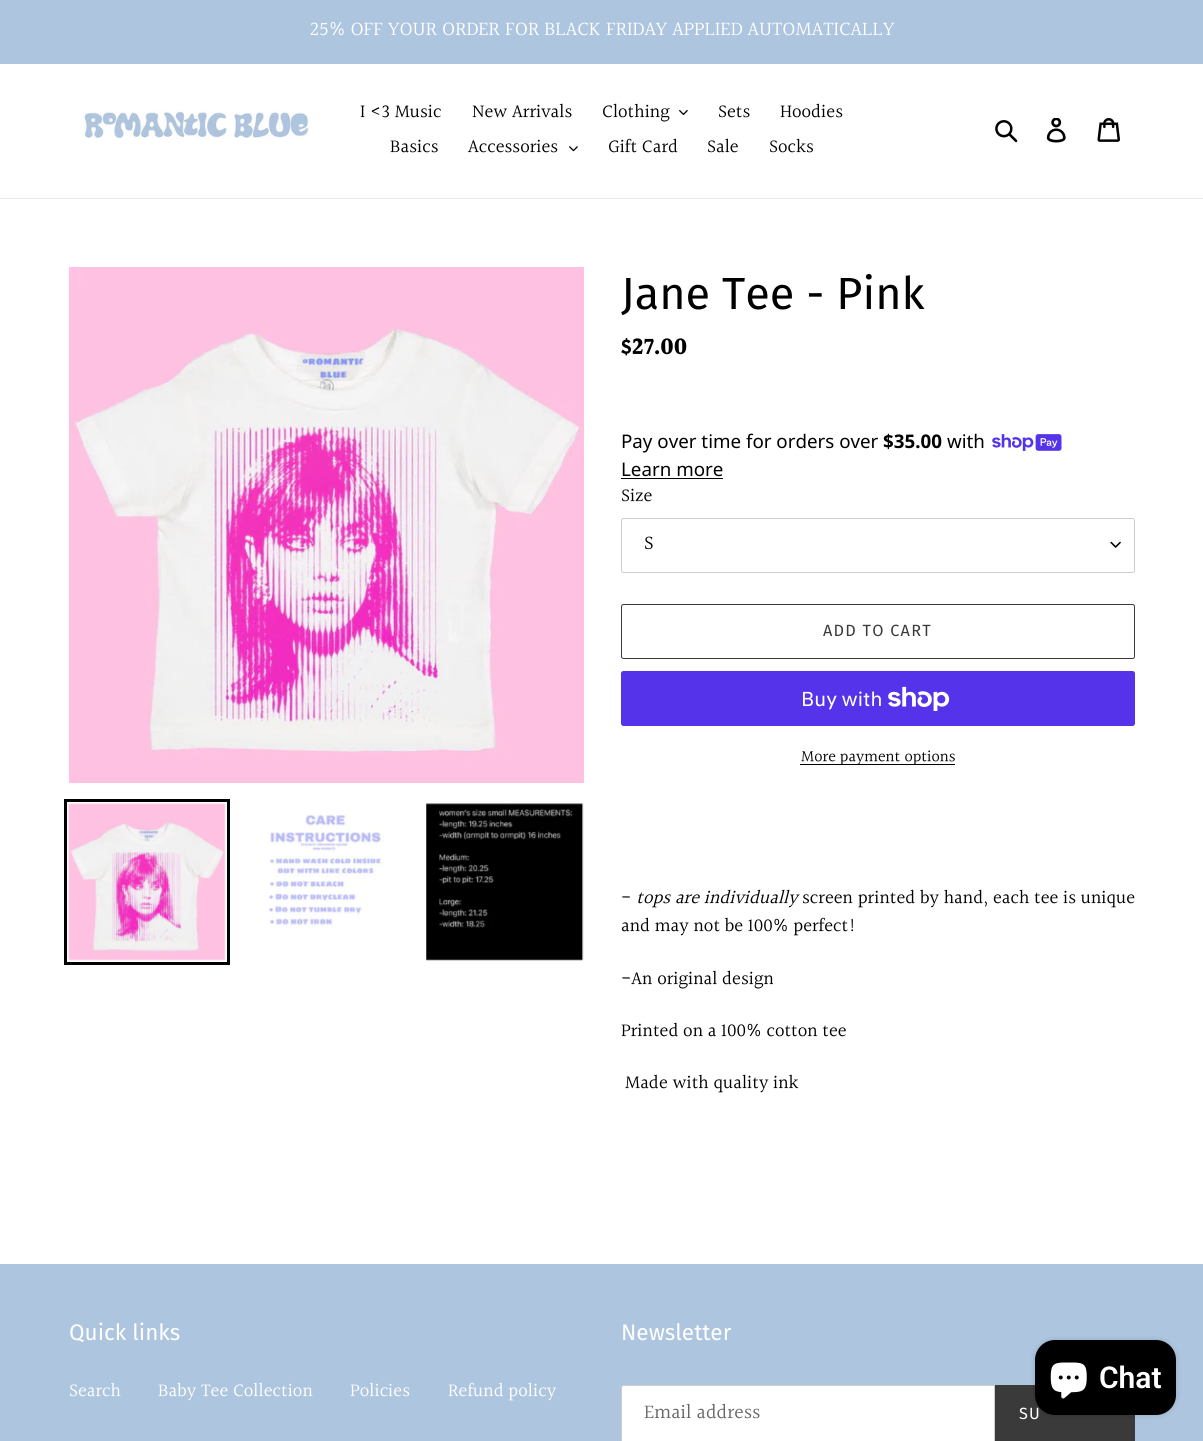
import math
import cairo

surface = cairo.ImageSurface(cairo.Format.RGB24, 1203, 1441)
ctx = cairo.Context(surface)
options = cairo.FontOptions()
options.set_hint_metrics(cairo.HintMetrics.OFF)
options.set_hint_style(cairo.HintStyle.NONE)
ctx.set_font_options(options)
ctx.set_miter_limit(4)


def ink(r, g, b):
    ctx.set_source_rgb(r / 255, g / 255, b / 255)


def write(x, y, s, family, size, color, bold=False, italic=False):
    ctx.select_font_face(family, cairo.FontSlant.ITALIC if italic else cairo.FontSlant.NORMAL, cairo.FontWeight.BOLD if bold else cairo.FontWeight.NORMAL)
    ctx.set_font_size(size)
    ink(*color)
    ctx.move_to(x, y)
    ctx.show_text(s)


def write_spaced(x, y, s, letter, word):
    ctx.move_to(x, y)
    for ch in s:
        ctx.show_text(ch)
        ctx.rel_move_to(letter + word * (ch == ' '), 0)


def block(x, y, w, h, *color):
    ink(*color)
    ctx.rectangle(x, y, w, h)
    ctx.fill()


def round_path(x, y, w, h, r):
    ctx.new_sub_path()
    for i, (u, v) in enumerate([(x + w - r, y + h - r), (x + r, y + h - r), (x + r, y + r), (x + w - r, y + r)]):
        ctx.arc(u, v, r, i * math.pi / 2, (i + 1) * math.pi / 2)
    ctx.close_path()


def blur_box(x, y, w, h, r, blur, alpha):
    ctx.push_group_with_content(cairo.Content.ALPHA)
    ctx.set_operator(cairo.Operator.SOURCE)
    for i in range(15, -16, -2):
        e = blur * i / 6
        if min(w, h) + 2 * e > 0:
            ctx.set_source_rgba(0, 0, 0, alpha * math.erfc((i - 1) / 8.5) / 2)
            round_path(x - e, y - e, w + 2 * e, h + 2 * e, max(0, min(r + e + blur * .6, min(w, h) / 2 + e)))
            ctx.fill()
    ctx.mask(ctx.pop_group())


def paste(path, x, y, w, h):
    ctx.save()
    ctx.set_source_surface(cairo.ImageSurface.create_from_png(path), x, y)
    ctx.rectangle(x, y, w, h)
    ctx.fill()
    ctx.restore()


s1 = dict(family="Halant", size=20, color=(255, 255, 255))
s2 = dict(family="Halant", size=18.75, color=(0, 0, 0))
s3 = dict(family="Fira Sans", size=45, color=(0, 0, 0))
s4 = dict(family="Halant", size=23.5, color=(0, 0, 0), bold=True)
s5 = dict(family="Noto Sans", size=18.75, color=(0, 0, 0))
s6 = dict(family="Noto Sans", size=18.75, color=(0, 0, 0), bold=True)
s7 = dict(family="Halant", size=20, color=(0, 0, 0))
s8 = dict(family="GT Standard", size=20, color=(255, 255, 255))
s9 = dict(family="Halant", size=16.25, color=(0, 0, 0))
s10 = dict(family="Halant", size=18.75, color=(0, 0, 0), italic=True)
s11 = dict(family="Fira Sans", size=22.5, color=(255, 255, 255))
s12 = dict(family="Halant", size=18.75, color=(255, 255, 255))
s13 = dict(family="Halant", size=20, color=(102, 102, 102))
s14 = dict(family="Roboto SemiBold", size=30, color=(255, 255, 255))

ink(255, 255, 255)
ctx.paint()
block(0, 0, 1203, 64, 173, 197, 223)
write(310, 36, "25% OFF YOUR ORDER FOR BLACK FRIDAY APPLIED AUTOMATICALLY", **s1)
block(0, 198, 1203, 1, 235, 235, 235)
paste("pic1.png", 81, 110, 229, 29)
write(360, 118, "I <3 Music", **s2)
write(472, 118, "New Arrivals", **s2)
write(602, 118, "Clothing", **s2)
paste("pic2.png", 679, 110, 9, 5)
write(718, 118, "Sets", **s2)
write(780, 118, "Hoodies", **s2)
write(390, 153, "Basics", **s2)
write(468, 153, "Accessories", **s2)
paste("pic3.png", 569, 146, 9, 6)
write(608, 153, "Gift Card", **s2)
write(707, 153, "Sale", **s2)
write(769, 153, "Socks", **s2)
paste("pic4.png", 995, 120, 23, 23)
paste("pic5.png", 1046, 118, 20, 25)
paste("pic6.png", 1097, 118, 23, 24)
paste("pic7.png", 69, 267, 515, 516)
ctx.rectangle(65.5, 800.5, 163, 163)
ctx.set_line_width(3)
ctx.stroke()
paste("pic8.png", 68, 803, 158, 158)
paste("pic9.png", 269, 814, 115, 115)
paste("pic10.png", 426, 803, 158, 158)
write(621, 309, "Jane Tee - Pink", **s3)
write(621, 355, "$27.00", **s4)
write(621, 448, "Pay over time for orders over", **s5)
write(883, 448, "$35.00", **s6)
write(947, 448, "with", **s5)
paste("pic11.png", 992, 434, 70, 17)
write(621, 476, "Learn more", **s5)
block(621, 478, 102, 1, 0, 0, 0)
write(621, 502, "Size", **s2)
paste("pic12.png", 1110, 541, 11, 7)
round_path(621.5, 518.5, 513, 54, 2)
ink(204, 204, 204)
ctx.set_line_width(1)
ctx.stroke()
write(644, 550, "S", **s7)
round_path(621.5, 604.5, 513, 54, 2)
ink(58, 58, 58)
ctx.stroke()
ctx.select_font_face("Fira Sans")
ctx.set_font_size(16.25)
write_spaced(823, 636, "ADD TO CART", 1.25, 0)
ink(84, 51, 235)
round_path(621, 671, 514, 55, 2.5)
ctx.fill()
write(801, 706, "Buy with", **s8)
paste("pic13.png", 888, 686, 62, 25)
block(800, 764, 155, 1, 0, 0, 0)
write(801, 762, "More payment options", **s9)
write(621, 904, "-", **s2)
write(636, 904, "tops are individually", **s10)
write(802, 904, "screen printed by hand, each tee is unique", **s2)
write(621, 932, "and may not be 100% perfect!", **s2)
write(621, 985, "-An original design", **s2)
write(621, 1037, "Printed on a 100% cotton tee", **s2)
write(625, 1089, "Made with quality ink", **s2)
block(0, 1264, 1203, 177, 173, 197, 223)
write(69, 1340, "Quick links", **s11)
write(69, 1397, "Search", **s12)
write(158, 1397, "Baby Tee Collection", **s12)
write(350, 1397, "Policies", **s12)
write(448, 1397, "Refund policy", **s12)
write(621, 1340, "Newsletter", **s11)
ctx.new_path()
ctx.move_to(623.5, 1385.5)
ctx.line_to(994.5, 1385.5)
ctx.line_to(994.5, 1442.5)
ctx.line_to(623.5, 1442.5)
ctx.curve_to(622.5, 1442.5, 621.5, 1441.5, 621.5, 1440.5)
ctx.line_to(621.5, 1387.5)
ctx.curve_to(621.5, 1386.5, 622.5, 1385.5, 623.5, 1385.5)
ctx.close_path()
ctx.fill_preserve()
ink(204, 204, 204)
ctx.stroke()
write(644, 1419, "Email address", **s13)
block(995, 1385, 140, 56, 58, 58, 58)
ctx.select_font_face("Fira Sans")
ctx.set_font_size(16.25)
ink(255, 255, 255)
write_spaced(1019, 1419, "SU", 1.25, 0)
ink(0, 0, 0)
blur_box(1035, 1340, 141, 75, 20, 3, 0.15)
ink(0, 0, 0)
round_path(1035, 1340, 141, 75, 20)
ctx.fill()
paste("pic14.png", 1050, 1362, 37, 37)
write(1099, 1388, "Chat", **s14)
surface.write_to_png("screenshot.png")
